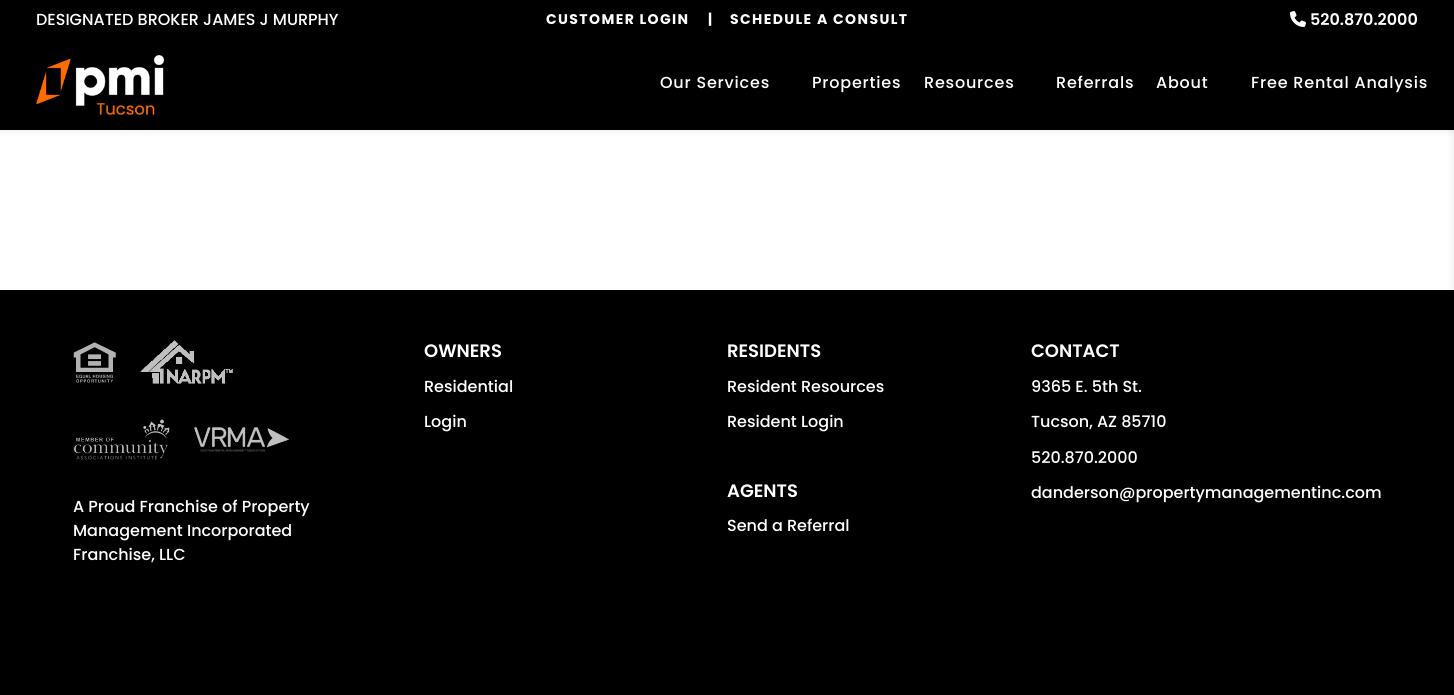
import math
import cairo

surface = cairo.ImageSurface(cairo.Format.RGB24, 1454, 695)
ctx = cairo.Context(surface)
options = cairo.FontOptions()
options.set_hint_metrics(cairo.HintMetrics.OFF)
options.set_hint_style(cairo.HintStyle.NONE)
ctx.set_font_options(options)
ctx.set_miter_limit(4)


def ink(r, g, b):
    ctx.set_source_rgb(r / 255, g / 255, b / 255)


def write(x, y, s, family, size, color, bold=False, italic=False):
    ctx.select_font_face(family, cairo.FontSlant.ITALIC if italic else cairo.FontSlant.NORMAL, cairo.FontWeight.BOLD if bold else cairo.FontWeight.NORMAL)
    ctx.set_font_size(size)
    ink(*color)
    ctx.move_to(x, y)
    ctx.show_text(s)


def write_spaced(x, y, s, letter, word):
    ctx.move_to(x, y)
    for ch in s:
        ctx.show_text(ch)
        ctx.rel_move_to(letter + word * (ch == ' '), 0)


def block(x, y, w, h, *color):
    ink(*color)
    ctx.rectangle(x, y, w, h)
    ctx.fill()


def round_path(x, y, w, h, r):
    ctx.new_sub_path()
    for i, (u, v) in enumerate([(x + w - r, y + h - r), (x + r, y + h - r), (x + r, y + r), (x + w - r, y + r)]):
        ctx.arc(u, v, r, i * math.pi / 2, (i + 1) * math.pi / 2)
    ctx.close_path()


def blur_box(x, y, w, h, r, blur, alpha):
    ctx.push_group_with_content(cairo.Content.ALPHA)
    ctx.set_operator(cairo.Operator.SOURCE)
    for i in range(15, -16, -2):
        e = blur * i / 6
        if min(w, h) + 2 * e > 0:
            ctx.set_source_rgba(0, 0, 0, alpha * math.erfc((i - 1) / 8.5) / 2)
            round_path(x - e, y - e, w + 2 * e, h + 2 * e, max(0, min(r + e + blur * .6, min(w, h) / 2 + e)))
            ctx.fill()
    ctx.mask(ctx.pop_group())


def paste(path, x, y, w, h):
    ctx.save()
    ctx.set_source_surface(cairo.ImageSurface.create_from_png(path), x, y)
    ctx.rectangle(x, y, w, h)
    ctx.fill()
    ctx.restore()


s1 = dict(family="Poppins Medium", size=16, color=(255, 255, 255))
s2 = dict(family="Poppins SemiBold", size=16, color=(255, 255, 255))
s3 = dict(family="Poppins SemiBold", size=18, color=(255, 255, 255))

ink(255, 255, 255)
ctx.paint()
ink(0, 0, 0)
blur_box(0, 0, 1454, 130, 0, 4, 0.1)
block(0, 0, 1454, 130, 0, 0, 0)
ctx.select_font_face("Poppins", cairo.FontSlant.NORMAL, cairo.FontWeight.BOLD)
ctx.set_font_size(14)
ink(255, 255, 255)
write_spaced(546, 24, "CUSTOMER LOGIN", 1.4, 0)
write_spaced(708, 24, "|", 1.4, 0)
write_spaced(730, 24, "SCHEDULE A CONSULT", 1.4, 0)
paste("pic1.png", 36, 55, 128, 60)
ctx.select_font_face("Poppins Medium")
ctx.set_font_size(16)
write_spaced(660, 88, "Our Services", 0.8, 0)
write_spaced(812, 88, "Properties", 0.8, 0)
write_spaced(924, 88, "Resources", 0.8, 0)
write_spaced(1056, 88, "Referrals", 0.8, 0)
write_spaced(1156, 88, "About", 0.8, 0)
write_spaced(1251, 88, "Free Rental Analysis", 0.8, 0)
write(36, 25, "DESIGNATED BROKER JAMES J MURPHY", **s1)
paste("pic2.png", 1290, 11, 16, 16)
write(1310, 25, "520.870.2000", **s2)
block(0, 290, 1454, 405, 0, 0, 0)
ink(0, 0, 0)
blur_box(1454, 0, 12, 695, 0, 4, 0.1)
write(424, 357, "OWNERS", **s3)
write(424, 392, "Residential", **s1)
write(424, 427, "Login", **s1)
write(727, 357, "RESIDENTS", **s3)
write(727, 392, "Resident Resources", **s1)
write(727, 427, "Resident Login", **s1)
write(727, 497, "AGENTS", **s3)
write(727, 531, "Send a Referral", **s1)
write(1031, 357, "CONTACT", **s3)
write(1031, 392, "9365 E. 5th St.", **s1)
write(1031, 427, "Tucson, AZ 85710", **s1)
write(1031, 463, "520.870.2000", **s1)
write(1031, 498, "danderson@propertymanagementinc.com", **s1)
paste("pic3.png", 73, 342, 43, 41)
paste("pic4.png", 140, 340, 93, 44)
paste("pic5.png", 73, 419, 97, 41)
paste("pic6.png", 194, 427, 95, 25)
write(73, 512, "A Proud Franchise of Property", **s1)
write(73, 536, "Management Incorporated", **s1)
write(73, 560, "Franchise, LLC", **s1)
surface.write_to_png("screenshot.png")
